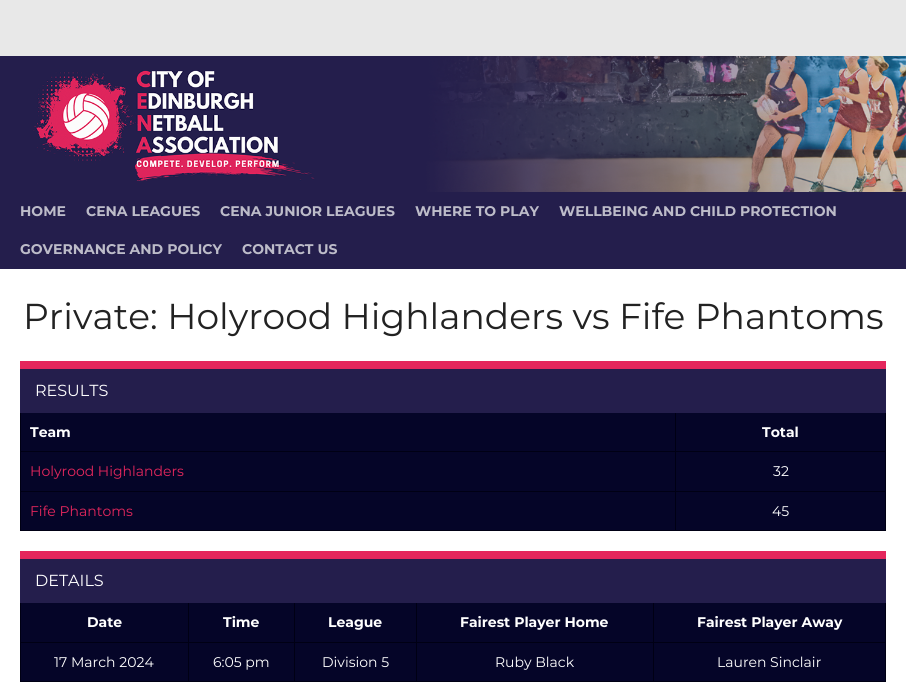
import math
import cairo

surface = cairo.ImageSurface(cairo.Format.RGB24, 906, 693)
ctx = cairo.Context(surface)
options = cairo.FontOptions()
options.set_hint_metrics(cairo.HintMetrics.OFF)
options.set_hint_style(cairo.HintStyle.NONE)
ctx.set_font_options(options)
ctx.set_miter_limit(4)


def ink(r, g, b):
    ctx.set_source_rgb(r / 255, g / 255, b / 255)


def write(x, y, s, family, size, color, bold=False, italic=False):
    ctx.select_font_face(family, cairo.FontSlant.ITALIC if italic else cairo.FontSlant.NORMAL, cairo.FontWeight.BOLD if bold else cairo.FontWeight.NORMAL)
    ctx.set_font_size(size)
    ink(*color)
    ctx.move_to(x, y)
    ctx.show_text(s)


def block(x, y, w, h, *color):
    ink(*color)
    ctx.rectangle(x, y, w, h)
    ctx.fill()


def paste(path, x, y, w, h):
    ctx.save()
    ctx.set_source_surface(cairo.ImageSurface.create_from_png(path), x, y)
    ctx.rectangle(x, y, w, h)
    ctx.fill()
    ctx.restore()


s1 = dict(family="Montserrat", size=14, color=(189, 188, 201), bold=True)
s2 = dict(family="Montserrat", size=36, color=(34, 34, 34))
s3 = dict(family="Montserrat", size=16, color=(255, 255, 255))
s4 = dict(family="Montserrat", size=14, color=(255, 255, 255), bold=True)
s5 = dict(family="Montserrat", size=14, color=(228, 38, 92))
s6 = dict(family="Montserrat", size=14, color=(255, 255, 255))

ink(232, 232, 232)
ctx.paint()
paste("pic1.png", 0, 56, 906, 136)
block(0, 192, 906, 77, 36, 30, 76)
write(20, 216, "HOME", **s1)
write(86, 216, "CENA LEAGUES", **s1)
write(220, 216, "CENA JUNIOR LEAGUES", **s1)
write(415, 216, "WHERE TO PLAY", **s1)
write(559, 216, "WELLBEING AND CHILD PROTECTION", **s1)
write(20, 254, "GOVERNANCE AND POLICY", **s1)
write(242, 254, "CONTACT US", **s1)
block(0, 269, 906, 424, 255, 255, 255)
write(23, 329, "Private: Holyrood Highlanders vs Fife Phantoms", **s2)
block(885, 412, 1, 119, 0, 0, 20)
block(20, 530, 866, 1, 0, 0, 20)
block(20, 412, 1, 119, 0, 0, 20)
block(21, 413, 864, 117, 5, 5, 40)
block(675, 451, 211, 1, 0, 0, 20)
block(675, 491, 211, 1, 0, 0, 20)
block(675, 491, 1, 40, 0, 0, 20)
block(20, 491, 656, 1, 0, 0, 20)
block(675, 451, 1, 41, 0, 0, 20)
block(20, 451, 656, 1, 0, 0, 20)
block(675, 412, 1, 40, 0, 0, 20)
block(20, 369, 866, 44, 36, 30, 76)
block(20, 361, 866, 8, 228, 38, 92)
write(35, 396, "RESULTS", **s3)
write(30, 437, "Team", **s4)
write(762, 437, "Total", **s4)
write(30, 476, "Holyrood Highlanders", **s5)
write(773, 476, "32", **s6)
write(30, 516, "Fife Phantoms", **s5)
write(772, 516, "45", **s6)
block(885, 602, 1, 80, 0, 0, 20)
block(20, 681, 866, 1, 0, 0, 20)
block(20, 602, 1, 80, 0, 0, 20)
block(21, 603, 864, 78, 5, 5, 40)
block(653, 642, 233, 1, 0, 0, 20)
block(653, 642, 1, 40, 0, 0, 20)
block(416, 642, 238, 1, 0, 0, 20)
block(416, 642, 1, 40, 0, 0, 20)
block(294, 642, 123, 1, 0, 0, 20)
block(294, 642, 1, 40, 0, 0, 20)
block(188, 642, 107, 1, 0, 0, 20)
block(188, 642, 1, 40, 0, 0, 20)
block(20, 642, 169, 1, 0, 0, 20)
block(188, 602, 1, 41, 0, 0, 20)
block(294, 602, 1, 41, 0, 0, 20)
block(416, 602, 1, 41, 0, 0, 20)
block(653, 602, 1, 41, 0, 0, 20)
block(20, 559, 866, 44, 36, 30, 76)
block(20, 551, 866, 8, 228, 38, 92)
write(35, 586, "DETAILS", **s3)
write(87, 627, "Date", **s4)
write(223, 627, "Time", **s4)
write(328, 627, "League", **s4)
write(460, 627, "Fairest Player Home", **s4)
write(697, 627, "Fairest Player Away", **s4)
write(54, 667, "17 March 2024", **s6)
write(213, 667, "6:05 pm", **s6)
write(322, 667, "Division 5", **s6)
write(495, 667, "Ruby Black", **s6)
write(717, 667, "Lauren Sinclair", **s6)
surface.write_to_png("screenshot.png")
